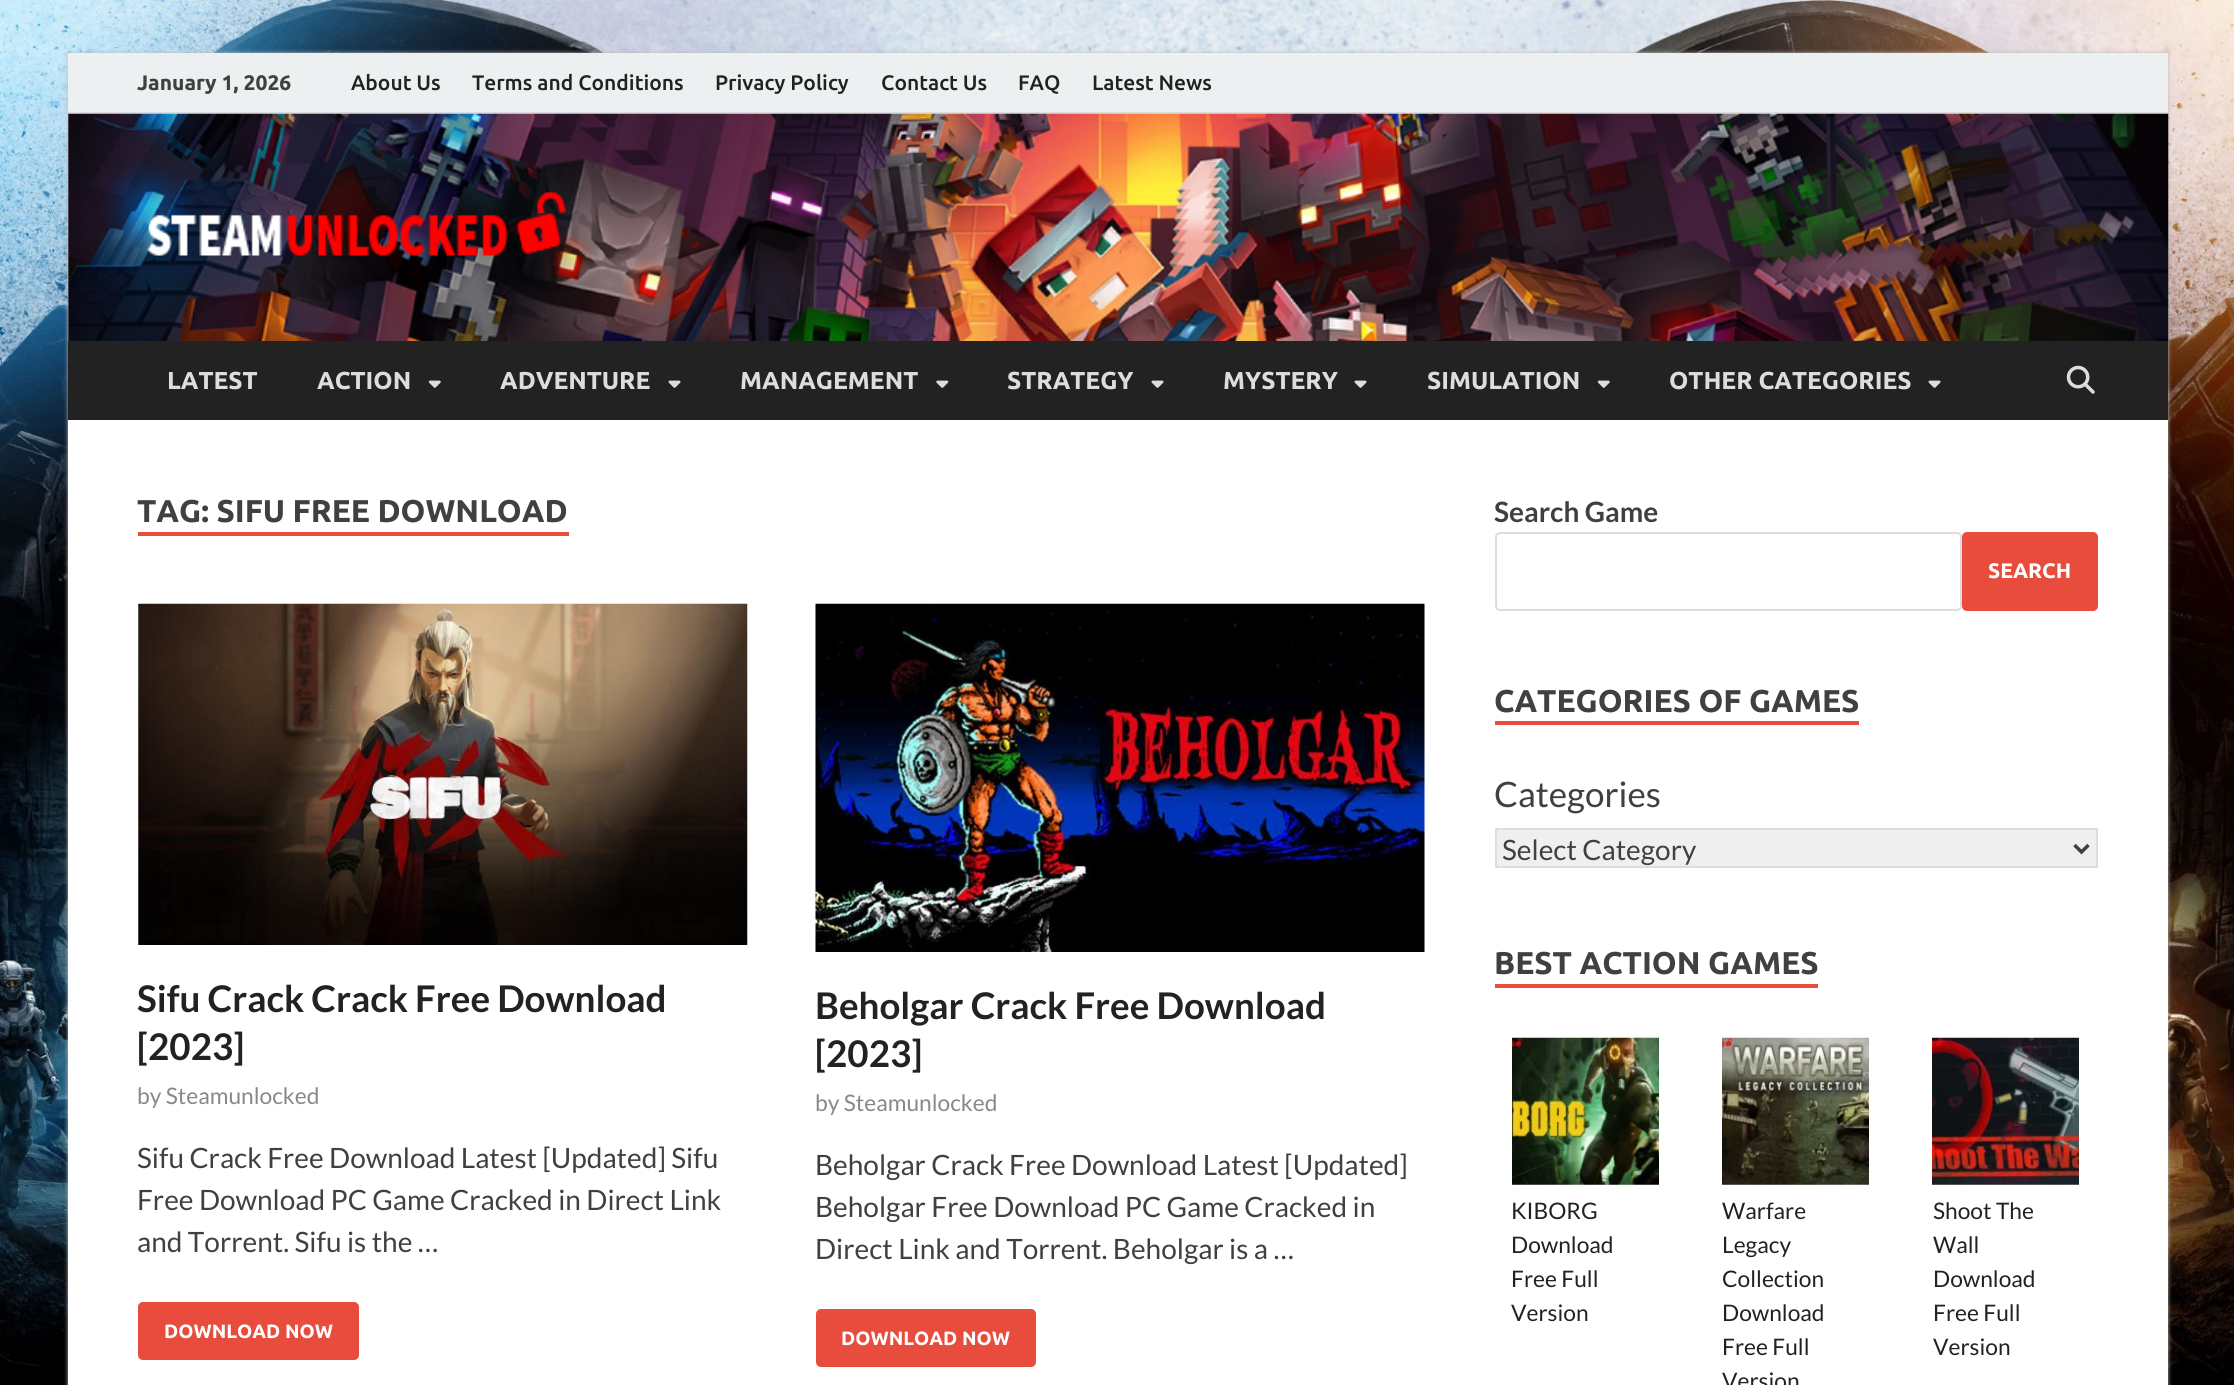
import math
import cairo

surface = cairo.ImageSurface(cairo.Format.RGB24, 2234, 1385)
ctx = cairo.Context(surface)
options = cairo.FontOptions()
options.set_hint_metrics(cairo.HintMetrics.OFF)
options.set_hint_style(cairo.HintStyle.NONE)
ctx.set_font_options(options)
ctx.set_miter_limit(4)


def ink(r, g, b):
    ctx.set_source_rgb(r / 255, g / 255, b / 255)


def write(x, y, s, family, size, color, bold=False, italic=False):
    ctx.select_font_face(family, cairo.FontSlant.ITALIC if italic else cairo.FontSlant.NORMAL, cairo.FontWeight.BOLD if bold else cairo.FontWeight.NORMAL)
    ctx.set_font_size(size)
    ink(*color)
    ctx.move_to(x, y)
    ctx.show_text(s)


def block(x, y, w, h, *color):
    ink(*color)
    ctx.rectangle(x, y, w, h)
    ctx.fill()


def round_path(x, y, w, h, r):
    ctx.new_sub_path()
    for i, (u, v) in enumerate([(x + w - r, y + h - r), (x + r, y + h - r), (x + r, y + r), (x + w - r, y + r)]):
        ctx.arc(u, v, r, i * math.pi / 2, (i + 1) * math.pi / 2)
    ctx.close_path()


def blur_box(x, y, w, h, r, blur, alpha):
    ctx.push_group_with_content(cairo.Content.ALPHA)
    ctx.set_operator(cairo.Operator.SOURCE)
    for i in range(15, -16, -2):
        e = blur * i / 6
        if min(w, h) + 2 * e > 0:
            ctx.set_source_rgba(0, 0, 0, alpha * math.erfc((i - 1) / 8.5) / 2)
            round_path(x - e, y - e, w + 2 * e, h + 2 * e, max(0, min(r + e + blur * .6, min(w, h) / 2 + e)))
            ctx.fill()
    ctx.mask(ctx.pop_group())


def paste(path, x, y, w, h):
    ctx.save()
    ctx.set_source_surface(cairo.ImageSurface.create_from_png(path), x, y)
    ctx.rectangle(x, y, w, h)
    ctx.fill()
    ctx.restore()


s1 = dict(family="Ubuntu", size=21, color=(64, 64, 64), bold=True)
s2 = dict(family="Ubuntu Medium", size=21, color=(34, 34, 34))
s3 = dict(family="Ubuntu", size=24.5, color=(221, 221, 221), bold=True)
s4 = dict(family="Ubuntu", size=31.5, color=(64, 64, 64), bold=True)
s5 = dict(family="Lato", size=36.75, color=(34, 34, 34), bold=True)
s6 = dict(family="Lato", size=22.75, color=(136, 136, 136))
s7 = dict(family="Lato", size=28, color=(64, 64, 64))
s8 = dict(family="Ubuntu", size=19.25, color=(255, 255, 255), bold=True)
s9 = dict(family="Lato", size=28, color=(64, 64, 64), bold=True)
s10 = dict(family="Ubuntu", size=21, color=(255, 255, 255), bold=True)
s11 = dict(family="Lato", size=35, color=(64, 64, 64))
s12 = dict(family="Lato", size=22.75, color=(34, 34, 34))

ink(255, 255, 255)
ctx.paint()
paste("pic1.png", 0, 0, 2234, 1385)
ink(187, 187, 187)
blur_box(68, 53, 2100, 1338, 0, 2, 1)
block(68, 114, 2100, 1271, 255, 255, 255)
block(68, 53, 2100, 59, 236, 240, 241)
block(68, 112, 2100, 2, 221, 221, 221)
write(137, 90, "January 1, 2026", **s1)
write(351, 90, "About Us", **s2)
write(472, 90, "Terms and Conditions", **s2)
write(715, 90, "Privacy Policy", **s2)
write(881, 90, "Contact Us", **s2)
write(1018, 90, "FAQ", **s2)
write(1092, 90, "Latest News", **s2)
paste("pic2.png", 68, 113, 2101, 229)
paste("pic3.png", 146, 190, 420, 66)
block(68, 341, 2100, 79, 34, 34, 34)
write(167, 389, "LATEST", **s3)
write(317, 389, "ACTION", **s3)
paste("pic4.png", 428, 380, 13, 8)
write(500, 389, "ADVENTURE", **s3)
paste("pic5.png", 668, 380, 13, 8)
write(740, 389, "MANAGEMENT", **s3)
paste("pic6.png", 936, 380, 13, 8)
write(1007, 389, "STRATEGY", **s3)
paste("pic5.png", 1151, 380, 13, 8)
write(1223, 389, "MYSTERY", **s3)
paste("pic5.png", 1354, 380, 13, 8)
write(1427, 389, "SIMULATION", **s3)
paste("pic4.png", 1597, 380, 13, 8)
write(1669, 389, "OTHER CATEGORIES", **s3)
paste("pic5.png", 1928, 380, 13, 8)
paste("pic7.png", 2066, 365, 29, 29)
write(137, 522, "TAG: SIFU FREE DOWNLOAD", **s4)
block(138, 532, 431, 4, 231, 76, 60)
paste("pic8.png", 138, 603, 610, 342)
write(137, 1012, "Sifu Crack Crack Free Download", **s5)
write(137, 1060, "[2023]", **s5)
write(137, 1104, "by Steamunlocked", **s6)
write(137, 1168, "Sifu Crack Free Download Latest [Updated] Sifu", **s7)
write(137, 1210, "Free Download PC Game Cracked in Direct Link", **s7)
write(137, 1252, "and Torrent. Sifu is the …", **s7)
ink(231, 76, 60)
round_path(138, 1302, 221, 58, 5)
ctx.fill()
write(164, 1338, "DOWNLOAD NOW", **s8)
paste("pic9.png", 815, 603, 610, 349)
write(815, 1019, "Beholgar Crack Free Download", **s5)
write(815, 1067, "[2023]", **s5)
write(815, 1111, "by Steamunlocked", **s6)
write(815, 1175, "Beholgar Crack Free Download Latest [Updated]", **s7)
write(815, 1217, "Beholgar Free Download PC Game Cracked in", **s7)
write(815, 1259, "Direct Link and Torrent. Beholgar is a …", **s7)
ink(231, 76, 60)
round_path(816, 1309, 220, 58, 5)
ctx.fill()
write(841, 1345, "DOWNLOAD NOW", **s8)
write(1494, 522, "Search Game", **s9)
round_path(1496, 533, 465, 77, 4)
ink(221, 221, 221)
ctx.stroke()
ink(231, 76, 60)
round_path(1962, 532, 136, 79, 5)
ctx.fill()
write(1988, 578, "SEARCH", **s10)
block(1495, 721, 364, 4, 231, 76, 60)
write(1494, 712, "CATEGORIES OF GAMES", **s4)
write(1494, 807, "Categories", **s11)
ink(239, 239, 239)
ctx.rectangle(1496, 829, 601, 38)
ctx.fill_preserve()
ink(221, 221, 221)
ctx.stroke()
ctx.new_path()
ctx.move_to(2074.5, 845)
ctx.line_to(2081.5, 852)
ctx.line_to(2088.5, 845)
ink(64, 64, 64)
ctx.set_line_width(3.5)
ctx.stroke()
write(1502, 860, "Select Category", **s7)
block(1495, 984, 323, 4, 231, 76, 60)
write(1494, 974, "BEST ACTION GAMES", **s4)
paste("pic10.png", 1512, 1037, 147, 148)
write(1511, 1219, "KIBORG", **s12)
write(1511, 1253, "Download", **s12)
write(1511, 1287, "Free Full", **s12)
write(1511, 1321, "Version", **s12)
paste("pic11.png", 1722, 1037, 147, 148)
write(1722, 1219, "Warfare", **s12)
write(1722, 1253, "Legacy", **s12)
write(1722, 1287, "Collection", **s12)
write(1722, 1321, "Download", **s12)
write(1722, 1355, "Free Full", **s12)
write(1722, 1389, "Version", **s12)
paste("pic12.png", 1932, 1037, 147, 148)
write(1933, 1219, "Shoot The", **s12)
write(1933, 1253, "Wall", **s12)
write(1933, 1287, "Download", **s12)
write(1933, 1321, "Free Full", **s12)
write(1933, 1355, "Version", **s12)
surface.write_to_png("screenshot.png")
